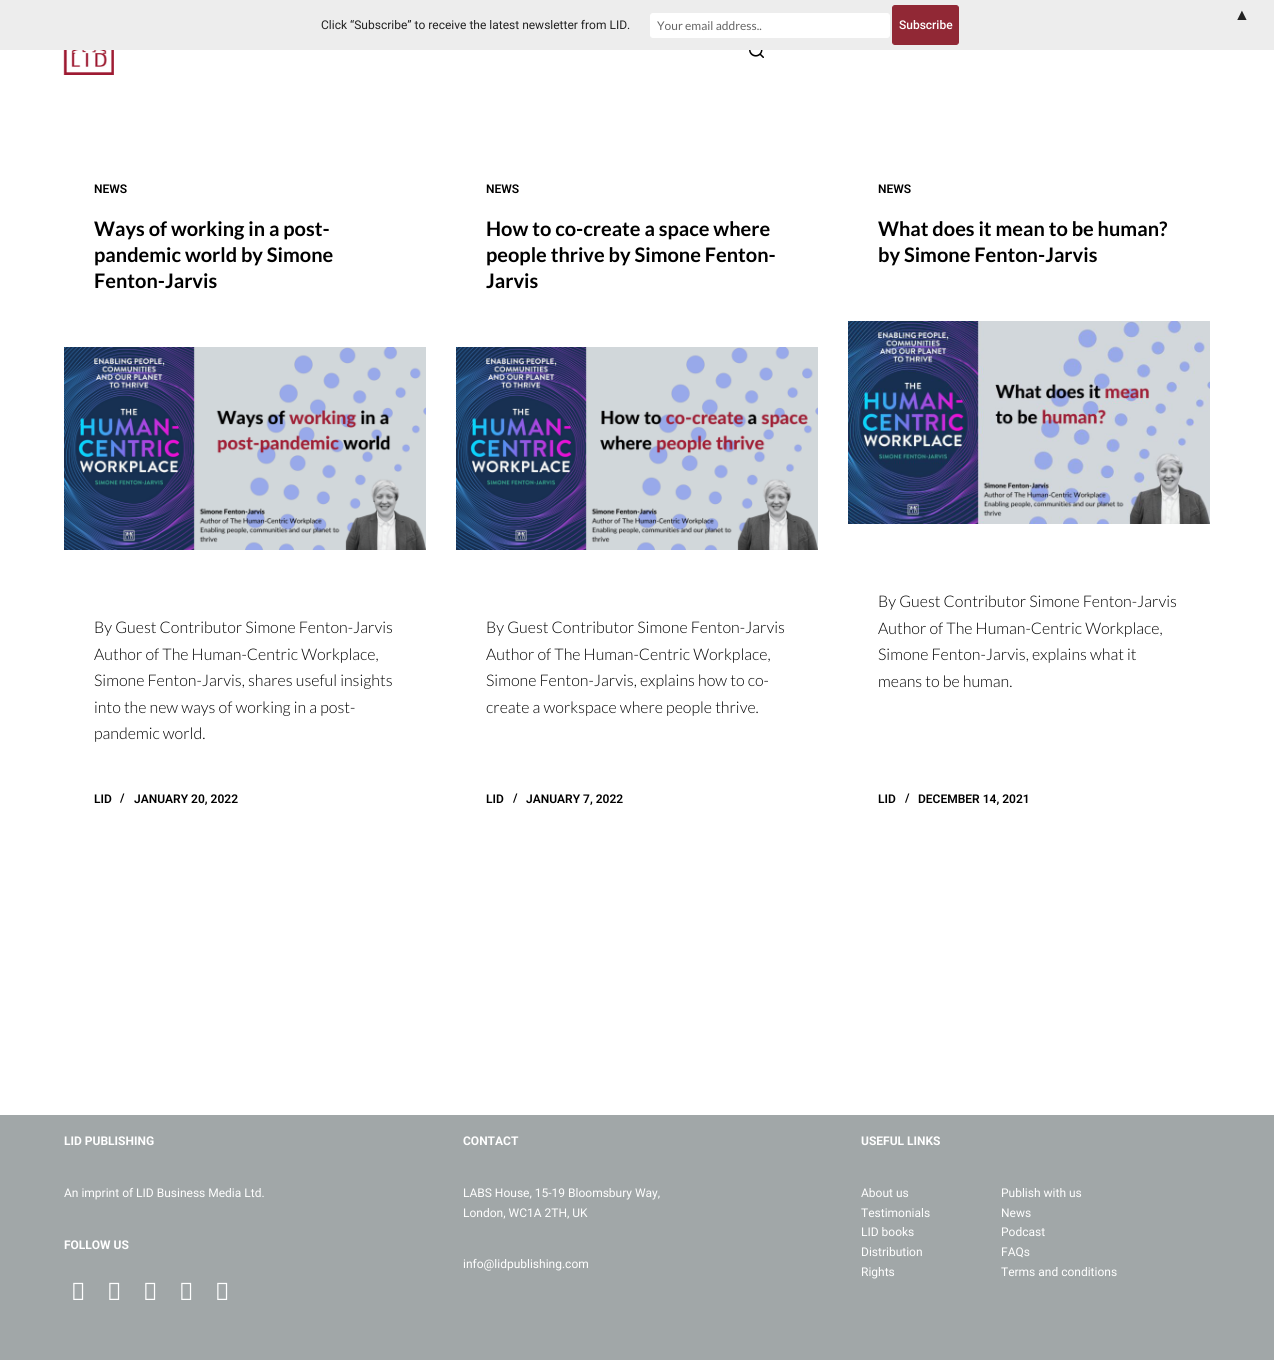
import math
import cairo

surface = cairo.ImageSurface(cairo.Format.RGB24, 1274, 1360)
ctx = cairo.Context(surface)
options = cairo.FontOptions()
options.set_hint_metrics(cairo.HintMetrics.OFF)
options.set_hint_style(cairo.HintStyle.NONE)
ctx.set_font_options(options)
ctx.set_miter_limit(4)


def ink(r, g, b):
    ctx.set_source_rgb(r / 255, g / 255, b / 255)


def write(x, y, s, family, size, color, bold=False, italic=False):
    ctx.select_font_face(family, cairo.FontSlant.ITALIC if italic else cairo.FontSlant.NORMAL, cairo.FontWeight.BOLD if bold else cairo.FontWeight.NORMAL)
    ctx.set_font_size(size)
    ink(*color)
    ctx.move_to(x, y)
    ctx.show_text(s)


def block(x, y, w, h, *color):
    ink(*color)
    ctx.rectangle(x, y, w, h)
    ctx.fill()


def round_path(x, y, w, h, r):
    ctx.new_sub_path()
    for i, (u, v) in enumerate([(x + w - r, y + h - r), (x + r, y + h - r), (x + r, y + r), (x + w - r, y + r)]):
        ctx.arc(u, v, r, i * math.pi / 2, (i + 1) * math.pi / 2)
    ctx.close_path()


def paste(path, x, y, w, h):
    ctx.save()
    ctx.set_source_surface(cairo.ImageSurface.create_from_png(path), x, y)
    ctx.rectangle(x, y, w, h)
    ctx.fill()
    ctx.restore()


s1 = dict(family="Liberation Serif", size=16, color=(34, 34, 34))
s2 = dict(family="Roboto", size=12, color=(34, 34, 34))
s3 = dict(family="Lato", size=12, color=(102, 102, 102))
s4 = dict(family="Roboto Medium", size=12, color=(255, 255, 255))
s5 = dict(family="Roboto SemiBold", size=12, color=(0, 0, 0))
s6 = dict(family="Lato", size=20, color=(0, 0, 0), bold=True)
s7 = dict(family="Lato Light", size=16, color=(0, 0, 0))
s8 = dict(family="Roboto", size=12, color=(255, 255, 255), bold=True)
s9 = dict(family="Roboto", size=12, color=(255, 255, 255))

ink(255, 255, 255)
ctx.paint()
block(0, 0, 1274, 50, 237, 237, 237)
write(1234, 20, "▲", **s1)
write(321, 29, "Click “Subscribe” to receive the latest newsletter from LID.", **s2)
ink(255, 255, 255)
round_path(650.5, 13.5, 239, 24, 2.5)
ctx.fill_preserve()
ctx.set_line_width(1)
ctx.stroke()
write(657, 30, "Your email address..", **s3)
ink(145, 40, 53)
round_path(892.5, 5.5, 66, 39, 2.5)
ctx.fill_preserve()
ctx.stroke()
write(899, 29, "Subscribe", **s4)
paste("pic1.png", 63, 50, 51, 25)
paste("pic2.png", 749, 50, 15, 8)
write(94, 193, "NEWS", **s5)
write(94, 236, "Ways of working in a post-", **s6)
write(94, 262, "pandemic world by Simone", **s6)
write(94, 288, "Fenton-Jarvis", **s6)
paste("pic3.png", 64, 347, 362, 203)
write(94, 633, "By Guest Contributor Simone Fenton-Jarvis", **s7)
write(94, 660, "Author of The Human-Centric Workplace,", **s7)
write(94, 686, "Simone Fenton-Jarvis, shares useful insights", **s7)
write(94, 713, "into the new ways of working in a post-", **s7)
write(94, 739, "pandemic world.", **s7)
write(94, 803, "LID", **s5)
write(120, 802, "/", **s5)
write(134, 803, "JANUARY 20, 2022", **s5)
write(486, 193, "NEWS", **s5)
write(486, 236, "How to co-create a space where", **s6)
write(486, 262, "people thrive by Simone Fenton-", **s6)
write(486, 288, "Jarvis", **s6)
paste("pic4.png", 456, 347, 362, 203)
write(486, 633, "By Guest Contributor Simone Fenton-Jarvis", **s7)
write(486, 660, "Author of The Human-Centric Workplace,", **s7)
write(486, 686, "Simone Fenton-Jarvis, explains how to co-", **s7)
write(486, 713, "create a workspace where people thrive.", **s7)
write(486, 803, "LID", **s5)
write(513, 802, "/", **s5)
write(526, 803, "JANUARY 7, 2022", **s5)
write(878, 193, "NEWS", **s5)
write(878, 236, "What does it mean to be human?", **s6)
write(878, 262, "by Simone Fenton-Jarvis", **s6)
paste("pic5.png", 848, 321, 362, 203)
write(878, 607, "By Guest Contributor Simone Fenton-Jarvis", **s7)
write(878, 634, "Author of The Human-Centric Workplace,", **s7)
write(878, 660, "Simone Fenton-Jarvis, explains what it", **s7)
write(878, 687, "means to be human.", **s7)
write(878, 803, "LID", **s5)
write(905, 802, "/", **s5)
write(918, 803, "DECEMBER 14, 2021", **s5)
block(0, 1115, 1274, 245, 161, 167, 168)
write(64, 1145, "LID PUBLISHING", **s8)
write(64, 1197, "An imprint of LID Business Media Ltd.", **s9)
write(64, 1249, "FOLLOW US", **s8)
paste("pic6.png", 73, 1282, 11, 18)
paste("pic6.png", 109, 1282, 11, 18)
paste("pic6.png", 145, 1282, 11, 18)
paste("pic6.png", 181, 1282, 11, 18)
paste("pic6.png", 217, 1282, 11, 18)
write(463, 1145, "CONTACT", **s8)
write(463, 1197, "LABS House, 15-19 Bloomsbury Way,", **s9)
write(463, 1217, "London, WC1A 2TH, UK", **s9)
write(463, 1268, "info@lidpublishing.com", **s9)
write(861, 1145, "USEFUL LINKS", **s8)
write(861, 1197, "About us", **s9)
write(861, 1217, "Testimonials", **s9)
write(861, 1236, "LID books", **s9)
write(861, 1256, "Distribution", **s9)
write(861, 1276, "Rights", **s9)
write(1001, 1197, "Publish with us", **s9)
write(1001, 1217, "News", **s9)
write(1001, 1236, "Podcast", **s9)
write(1001, 1256, "FAQs", **s9)
write(1001, 1276, "Terms and conditions", **s9)
surface.write_to_png("screenshot.png")
